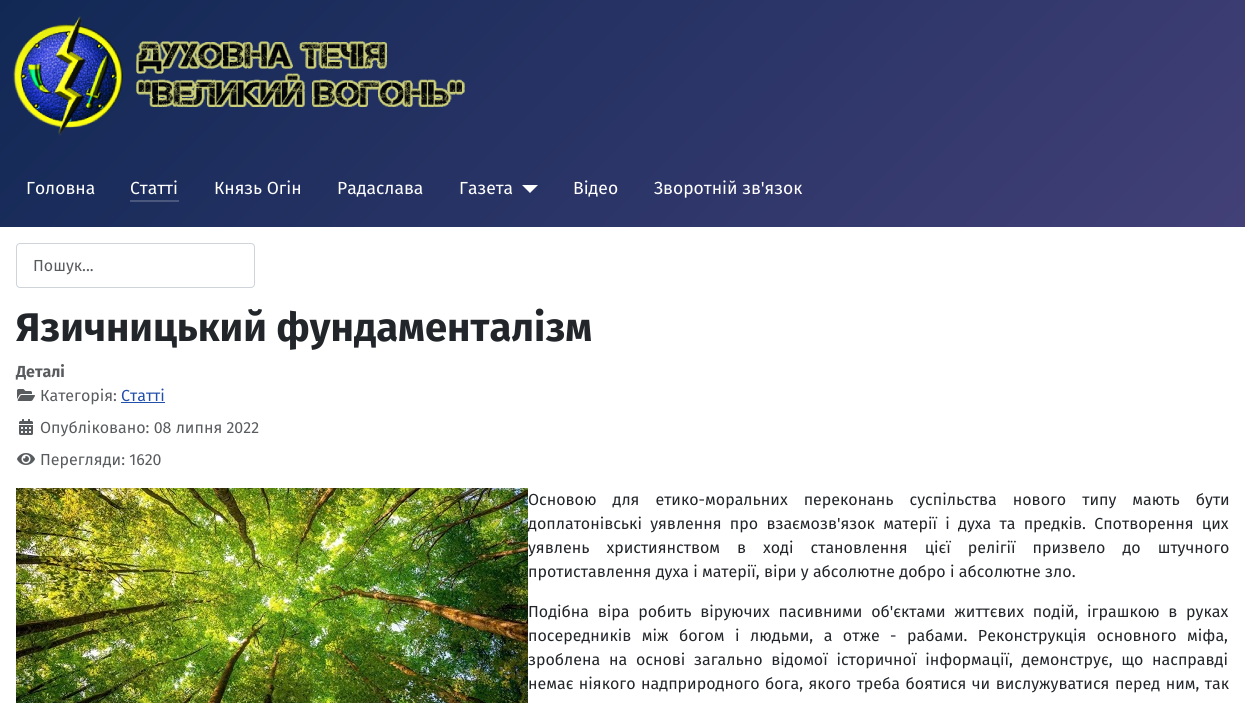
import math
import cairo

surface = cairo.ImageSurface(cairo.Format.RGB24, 1245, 703)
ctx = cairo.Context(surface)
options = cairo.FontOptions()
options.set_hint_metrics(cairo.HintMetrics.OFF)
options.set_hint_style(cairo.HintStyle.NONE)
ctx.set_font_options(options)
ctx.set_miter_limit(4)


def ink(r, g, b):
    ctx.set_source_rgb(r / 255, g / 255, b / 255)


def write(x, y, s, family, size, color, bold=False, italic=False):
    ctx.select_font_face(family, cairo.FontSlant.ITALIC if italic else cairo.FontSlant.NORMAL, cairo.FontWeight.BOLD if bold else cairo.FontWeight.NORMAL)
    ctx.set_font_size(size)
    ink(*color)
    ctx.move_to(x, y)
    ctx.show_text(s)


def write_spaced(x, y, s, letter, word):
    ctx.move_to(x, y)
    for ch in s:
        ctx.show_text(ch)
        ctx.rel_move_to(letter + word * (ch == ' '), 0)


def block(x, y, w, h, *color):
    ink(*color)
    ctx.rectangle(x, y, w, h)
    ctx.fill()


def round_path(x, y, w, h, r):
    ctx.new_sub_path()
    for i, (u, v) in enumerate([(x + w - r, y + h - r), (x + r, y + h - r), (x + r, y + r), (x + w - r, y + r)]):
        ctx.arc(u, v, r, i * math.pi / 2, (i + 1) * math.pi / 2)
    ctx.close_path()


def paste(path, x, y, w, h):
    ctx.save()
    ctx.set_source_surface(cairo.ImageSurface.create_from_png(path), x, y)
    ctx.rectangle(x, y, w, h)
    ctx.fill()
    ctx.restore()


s1 = dict(family="Fira Sans", size=17.5, color=(255, 255, 255))
s2 = dict(family="Fira Sans", size=16, color=(89, 92, 95))
s3 = dict(family="Fira Sans", size=40, color=(34, 38, 42), bold=True)
s4 = dict(family="Fira Sans", size=16, color=(89, 92, 95), bold=True)
s5 = dict(family="Fira Sans", size=16, color=(34, 79, 170))
s6 = dict(family="Fira Sans", size=16, color=(34, 38, 42))

ink(255, 255, 255)
ctx.paint()
gradient = cairo.LinearGradient(255, -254, 991, 481)
gradient.add_color_stop_rgba(0, 0.067, 0.157, 0.333, 1)
gradient.add_color_stop_rgba(1, 0.259, 0.251, 0.467, 1)
ctx.set_source(gradient)
ctx.rectangle(0, 0, 1245, 227)
ctx.fill()
paste("pic1.png", 13, 16, 452, 120)
write(26, 194, "Головна", **s1)
write(130, 194, "Статті", **s1)
block(130, 200, 49, 2, 74, 88, 126)
write(214, 194, "Князь Огін", **s1)
write(337, 194, "Радаслава", **s1)
write(459, 194, "Газета", **s1)
ctx.new_path()
ctx.move_to(522, 185)
ctx.line_to(538, 185)
ctx.line_to(530, 193)
ctx.close_path()
ctx.fill()
write(573, 194, "Відео", **s1)
write(654, 194, "Зворотній зв'язок", **s1)
round_path(16.5, 243.5, 238, 44, 3.5)
ink(206, 212, 218)
ctx.set_line_width(1)
ctx.stroke()
write(33, 271, "Пошук...", **s2)
write(16, 341, "Язичницький фундаменталізм", **s3)
write(16, 377, "Деталі", **s4)
paste("pic2.png", 17, 389, 18, 12)
write(40, 401, "Категорія:", **s2)
write(121, 401, "Статті", **s5)
block(121, 402, 44, 1, 34, 79, 170)
paste("pic3.png", 19, 419, 14, 16)
write(40, 433, "Опубліковано: 08 липня 2022", **s2)
paste("pic4.png", 17, 453, 18, 12)
write(40, 465, "Перегляди: 1620", **s2)
paste("pic5.png", 16, 488, 512, 215)
ink(34, 38, 42)
write_spaced(528, 505, "Основою для етико-моральних переконань суспільства нового типу мають бути", 0, 11.75)
write_spaced(528, 529, "доплатонівські уявлення про взаємозв'язок матерії і духа та предків. Спотворення цих", 0, 4)
write_spaced(528, 553, "уявлень християнством в ході становлення цієї релігії призвело до штучного", 0, 12.75)
write(528, 577, "протиставлення духа і матерії, віри у абсолютне добро і абсолютне зло.", **s6)
write_spaced(528, 617, "Подібна віра робить віруючих пасивними об'єктами життєвих подій, іграшкою в руках", 0, 4.5)
write_spaced(528, 641, "посередників між богом і людьми, а отже - рабами. Реконструкція основного міфа,", 0, 6.25)
write_spaced(528, 665, "зроблена на основі загально відомої історичної інформації, демонструє, що насправді", 0, 4.5)
write_spaced(528, 689, "немає ніякого надприродного бога, якого треба боятися чи вислужуватися перед ним, так", 0, 1.25)
surface.write_to_png("screenshot.png")
